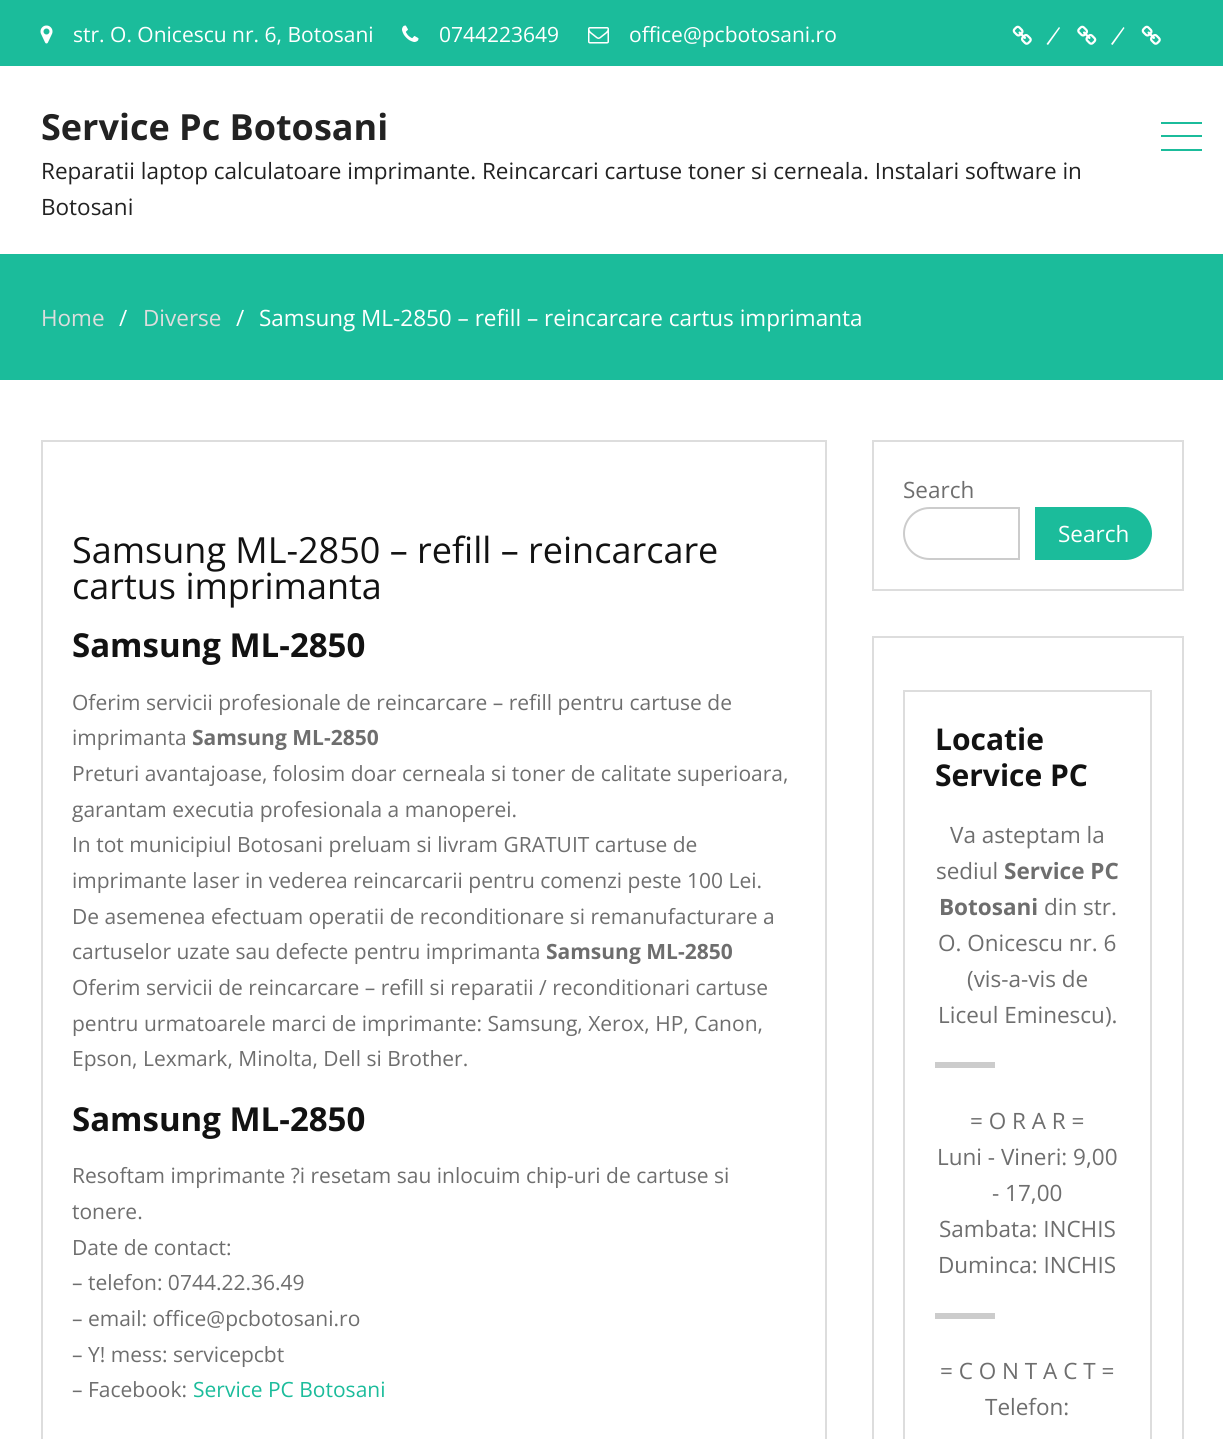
import math
import cairo

surface = cairo.ImageSurface(cairo.Format.RGB24, 1223, 1439)
ctx = cairo.Context(surface)
options = cairo.FontOptions()
options.set_hint_metrics(cairo.HintMetrics.OFF)
options.set_hint_style(cairo.HintStyle.NONE)
ctx.set_font_options(options)
ctx.set_miter_limit(4)


def ink(r, g, b):
    ctx.set_source_rgb(r / 255, g / 255, b / 255)


def write(x, y, s, family, size, color, bold=False, italic=False):
    ctx.select_font_face(family, cairo.FontSlant.ITALIC if italic else cairo.FontSlant.NORMAL, cairo.FontWeight.BOLD if bold else cairo.FontWeight.NORMAL)
    ctx.set_font_size(size)
    ink(*color)
    ctx.move_to(x, y)
    ctx.show_text(s)


def block(x, y, w, h, *color):
    ink(*color)
    ctx.rectangle(x, y, w, h)
    ctx.fill()


def paste(path, x, y, w, h):
    ctx.save()
    ctx.set_source_surface(cairo.ImageSurface.create_from_png(path), x, y)
    ctx.rectangle(x, y, w, h)
    ctx.fill()
    ctx.restore()


s1 = dict(family="Open Sans", size=21, color=(255, 255, 255))
s2 = dict(family="Open Sans", size=36, color=(34, 34, 34), bold=True)
s3 = dict(family="Open Sans", size=22.5, color=(34, 34, 34))
s4 = dict(family="Open Sans", size=22.5, color=(221, 221, 221))
s5 = dict(family="Open Sans", size=22.5, color=(255, 255, 255))
s6 = dict(family="Open Sans", size=36, color=(18, 18, 18))
s7 = dict(family="Open Sans", size=33, color=(18, 18, 18), bold=True)
s8 = dict(family="Open Sans", size=21, color=(110, 110, 110))
s9 = dict(family="Open Sans", size=21, color=(110, 110, 110), bold=True)
s10 = dict(family="Open Sans", size=21, color=(27, 188, 155))
s11 = dict(family="Open Sans", size=22.5, color=(110, 110, 110))
s12 = dict(family="Open Sans", size=30, color=(18, 18, 18), bold=True)
s13 = dict(family="Open Sans", size=22.5, color=(110, 110, 110), bold=True)

ink(255, 255, 255)
ctx.paint()
block(0, 0, 1223, 66, 27, 188, 155)
paste("pic1.png", 40, 25, 13, 19)
write(73, 42, "str. O. Onicescu nr. 6, Botosani", **s1)
paste("pic2.png", 402, 25, 17, 17)
write(439, 42, "0744223649", **s1)
paste("pic3.png", 588, 27, 21, 17)
write(629, 42, "office@pcbotosani.ro", **s1)
paste("pic4.png", 1012, 25, 20, 20)
ctx.new_path()
ctx.move_to(1059, 27)
ctx.line_to(1060, 28)
ctx.line_to(1048, 45)
ctx.line_to(1046.5, 44)
ctx.close_path()
ctx.fill()
paste("pic5.png", 1077, 25, 20, 20)
ctx.new_path()
ctx.move_to(1123.5, 27)
ctx.line_to(1124.5, 28)
ctx.line_to(1112.5, 45)
ctx.line_to(1111, 44)
ctx.close_path()
ctx.fill()
paste("pic4.png", 1141, 25, 20, 20)
write(41, 140, "Service Pc Botosani", **s2)
write(41, 179, "Reparatii laptop calculatoare imprimante. Reincarcari cartuse toner si cerneala. Instalari software in", **s3)
write(41, 215, "Botosani", **s3)
block(1161, 122, 41, 2, 27, 188, 155)
block(1161, 135, 41, 2, 27, 188, 155)
block(1161, 149, 41, 2, 27, 188, 155)
block(0, 254, 1223, 126, 27, 188, 155)
write(41, 326, "Home", **s4)
write(119, 326, "/", **s5)
write(143, 326, "Diverse", **s4)
write(236, 326, "/", **s5)
write(259, 326, "Samsung ML-2850 – refill – reincarcare cartus imprimanta", **s5)
ctx.rectangle(42, 441, 784, 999)
ink(221, 221, 221)
ctx.stroke()
write(72, 563, "Samsung ML-2850 – refill – reincarcare", **s6)
write(72, 599, "cartus imprimanta", **s6)
write(72, 657, "Samsung ML-2850", **s7)
write(72, 710, "Oferim servicii profesionale de reincarcare – refill pentru cartuse de", **s8)
write(72, 745, "imprimanta", **s8)
write(192, 745, "Samsung ML-2850", **s9)
write(72, 781, "Preturi avantajoase, folosim doar cerneala si toner de calitate superioara,", **s8)
write(72, 817, "garantam executia profesionala a manoperei.", **s8)
write(72, 852, "In tot municipiul Botosani preluam si livram GRATUIT cartuse de", **s8)
write(72, 888, "imprimante laser in vederea reincarcarii pentru comenzi peste 100 Lei.", **s8)
write(72, 924, "De asemenea efectuam operatii de reconditionare si remanufacturare a", **s8)
write(72, 959, "cartuselor uzate sau defecte pentru imprimanta", **s8)
write(546, 959, "Samsung ML-2850", **s9)
write(72, 995, "Oferim servicii de reincarcare – refill si reparatii / reconditionari cartuse", **s8)
write(72, 1031, "pentru urmatoarele marci de imprimante: Samsung, Xerox, HP, Canon,", **s8)
write(72, 1066, "Epson, Lexmark, Minolta, Dell si Brother.", **s8)
write(72, 1131, "Samsung ML-2850", **s7)
write(72, 1183, "Resoftam imprimante ?i resetam sau inlocuim chip-uri de cartuse si", **s8)
write(72, 1219, "tonere.", **s8)
write(72, 1255, "Date de contact:", **s8)
write(72, 1290, "– telefon: 0744.22.36.49", **s8)
write(72, 1326, "– email: office@pcbotosani.ro", **s8)
write(72, 1362, "– Y! mess: servicepcbt", **s8)
write(72, 1397, "– Facebook:", **s8)
write(193, 1397, "Service PC Botosani", **s10)
ctx.rectangle(873, 441, 310, 149)
ink(221, 221, 221)
ctx.stroke()
write(903, 498, "Search", **s11)
ctx.new_path()
ctx.move_to(929.5, 508)
ctx.line_to(1019, 508)
ctx.line_to(1019, 559)
ctx.line_to(929.5, 559)
ctx.curve_to(915.5, 559, 904, 547.5, 904, 533.5)
ctx.curve_to(904, 519.5, 915.5, 508, 929.5, 508)
ctx.close_path()
ink(204, 204, 204)
ctx.stroke()
ink(27, 188, 155)
ctx.new_path()
ctx.move_to(1035, 507)
ctx.line_to(1125.5, 507)
ctx.curve_to(1140, 507, 1152, 519, 1152, 533.5)
ctx.curve_to(1152, 548, 1140, 560, 1125.5, 560)
ctx.line_to(1035, 560)
ctx.close_path()
ctx.fill()
write(1058, 542, "Search", **s5)
ctx.rectangle(873, 637, 310, 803)
ink(221, 221, 221)
ctx.stroke()
ctx.rectangle(904, 691, 247, 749)
ctx.stroke()
write(935, 750, "Locatie", **s12)
write(935, 786, "Service PC", **s12)
write(950, 843, "Va asteptam la", **s11)
write(936, 879, "sediul", **s11)
write(1004, 879, "Service PC", **s13)
write(939, 915, "Botosani", **s13)
write(1044, 915, "din str.", **s11)
write(938, 951, "O. Onicescu nr. 6", **s11)
write(967, 987, "(vis-a-vis de", **s11)
write(938, 1023, "Liceul Eminescu).", **s11)
block(935, 1062, 60, 6, 204, 204, 204)
write(970, 1129, "= O R A R =", **s11)
write(937, 1165, "Luni - Vineri: 9,00", **s11)
write(992, 1201, "- 17,00", **s11)
write(939, 1237, "Sambata: INCHIS", **s11)
write(938, 1273, "Duminca: INCHIS", **s11)
block(935, 1313, 60, 6, 204, 204, 204)
write(940, 1379, "= C O N T A C T =", **s11)
write(985, 1415, "Telefon:", **s11)
surface.write_to_png("screenshot.png")
